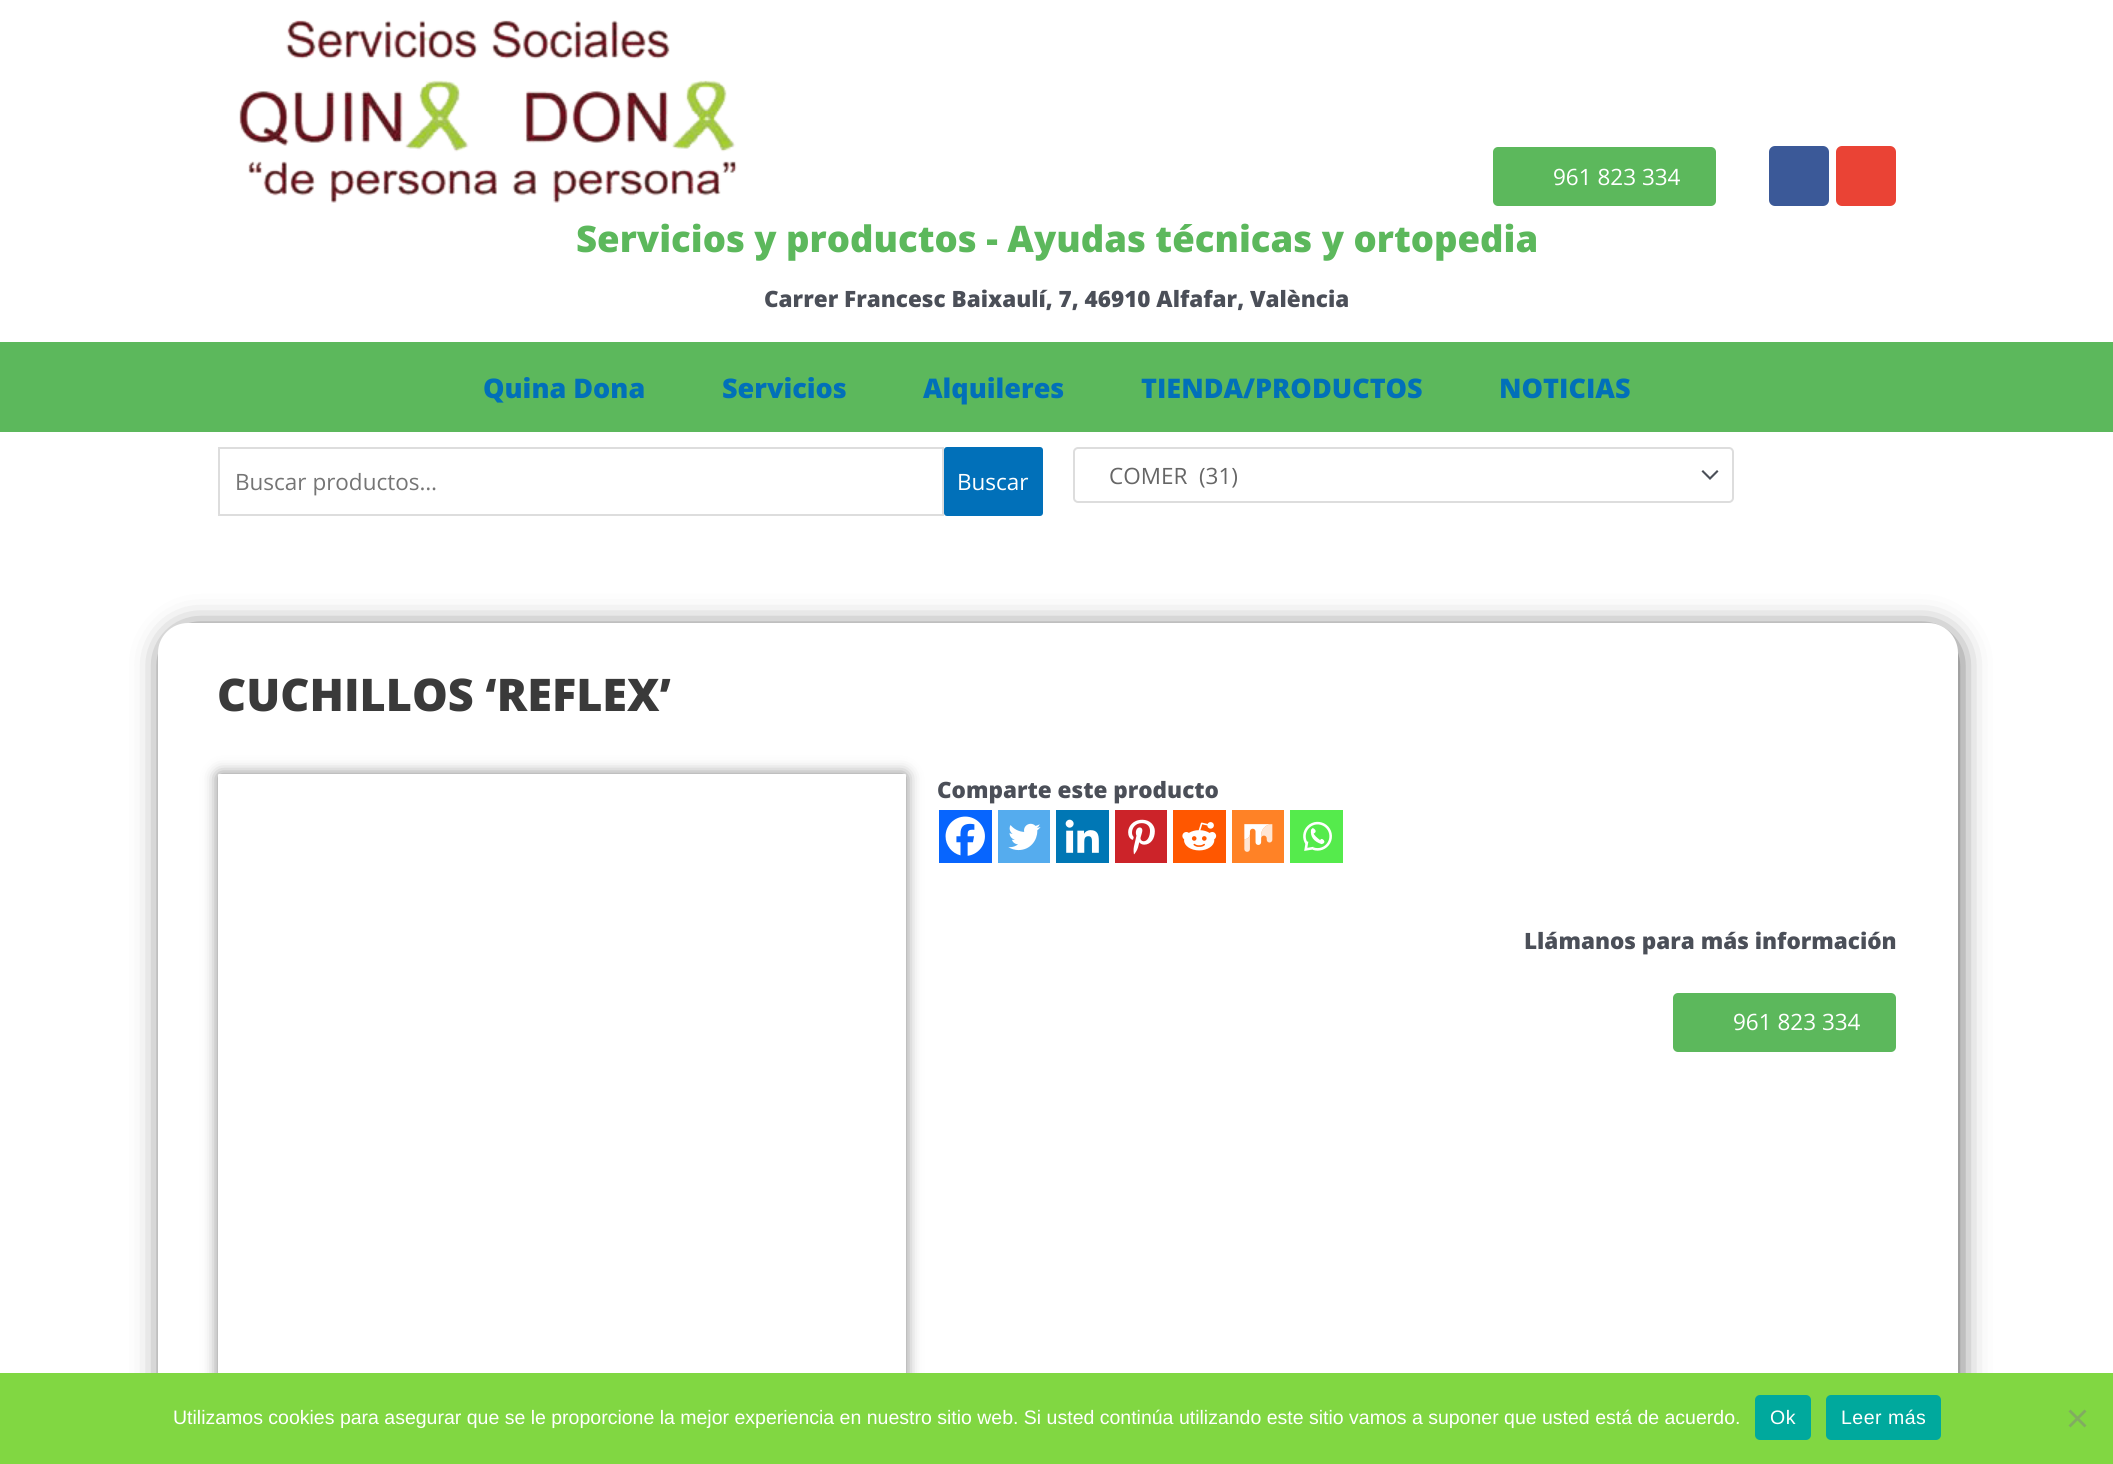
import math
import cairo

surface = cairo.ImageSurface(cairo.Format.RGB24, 2113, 1464)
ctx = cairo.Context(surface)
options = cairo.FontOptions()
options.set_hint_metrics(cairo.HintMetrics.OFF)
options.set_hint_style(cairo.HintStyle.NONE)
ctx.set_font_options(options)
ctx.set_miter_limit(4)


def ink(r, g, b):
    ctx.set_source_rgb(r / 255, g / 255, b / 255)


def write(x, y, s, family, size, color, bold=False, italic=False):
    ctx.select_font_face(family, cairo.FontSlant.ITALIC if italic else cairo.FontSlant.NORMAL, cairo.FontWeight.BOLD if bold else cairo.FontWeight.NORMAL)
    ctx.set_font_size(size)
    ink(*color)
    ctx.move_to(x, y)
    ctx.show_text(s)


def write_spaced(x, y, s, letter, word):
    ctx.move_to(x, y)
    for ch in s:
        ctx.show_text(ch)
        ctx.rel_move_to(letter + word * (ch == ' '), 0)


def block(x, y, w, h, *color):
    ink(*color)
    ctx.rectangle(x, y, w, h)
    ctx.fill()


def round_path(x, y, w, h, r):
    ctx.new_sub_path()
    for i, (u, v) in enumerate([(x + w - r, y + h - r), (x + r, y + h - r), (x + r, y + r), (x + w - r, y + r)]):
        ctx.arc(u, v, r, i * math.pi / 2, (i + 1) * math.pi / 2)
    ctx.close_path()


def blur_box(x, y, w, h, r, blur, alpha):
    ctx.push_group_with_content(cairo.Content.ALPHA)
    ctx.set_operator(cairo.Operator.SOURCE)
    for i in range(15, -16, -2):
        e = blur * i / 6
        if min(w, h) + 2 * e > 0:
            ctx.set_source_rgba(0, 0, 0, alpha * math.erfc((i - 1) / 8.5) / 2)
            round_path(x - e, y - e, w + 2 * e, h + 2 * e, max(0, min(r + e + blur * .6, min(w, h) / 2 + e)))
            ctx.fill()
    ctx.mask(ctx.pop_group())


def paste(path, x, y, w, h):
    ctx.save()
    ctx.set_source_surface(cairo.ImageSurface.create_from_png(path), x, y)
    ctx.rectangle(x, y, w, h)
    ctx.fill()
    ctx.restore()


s1 = dict(family="Open Sans", size=22.5, color=(255, 255, 255))
s2 = dict(family="Open Sans ExtraBold", size=36.55, color=(92, 184, 92))
s3 = dict(family="Open Sans ExtraBold", size=22.5, color=(75, 79, 88))
s4 = dict(family="Open Sans ExtraBold", size=27, color=(1, 112, 185))
s5 = dict(family="Open Sans", size=22.5, color=(117, 117, 117))
s6 = dict(family="Open Sans", size=22.5, color=(102, 102, 102))
s7 = dict(family="Open Sans ExtraBold", size=45, color=(58, 58, 58))
s8 = dict(family="Liberation Sans", size=19.5, color=(255, 255, 255))

ink(255, 255, 255)
ctx.paint()
paste("pic1.png", 239, 20, 498, 183)
ink(92, 184, 92)
round_path(1493, 147, 223, 59, 5)
ctx.fill()
write(1553, 185, "961 823 334", **s1)
ink(59, 89, 152)
round_path(1769, 146, 60, 60, 6)
ctx.fill()
ink(234, 67, 53)
round_path(1836, 146, 60, 60, 6)
ctx.fill()
write(576, 252, "Servicios y productos - Ayudas técnicas y ortopedia", **s2)
write(764, 307, "Carrer Francesc Baixaulí, 7, 46910 Alfafar, València", **s3)
block(0, 342, 2113, 90, 92, 184, 92)
write(483, 398, "Quina Dona", **s4)
write(722, 398, "Servicios", **s4)
write(923, 398, "Alquileres", **s4)
write(1141, 398, "TIENDA/PRODUCTOS", **s4)
write(1499, 398, "NOTICIAS", **s4)
ctx.rectangle(219, 448, 724, 67)
ink(221, 221, 221)
ctx.stroke()
write(235, 490, "Buscar productos…", **s5)
ink(1, 112, 185)
round_path(945, 448, 97, 67, 2)
ctx.fill_preserve()
ctx.stroke()
write(957, 490, "Buscar", **s1)
ink(75, 79, 88)
ctx.new_path()
ctx.move_to(1701.5, 471.5)
ctx.line_to(1710, 480)
ctx.line_to(1718.5, 471.5)
ctx.line_to(1717, 470)
ctx.line_to(1710, 477)
ctx.line_to(1703, 470)
ctx.close_path()
ctx.fill()
round_path(1074, 448, 659, 54, 4)
ink(221, 221, 221)
ctx.stroke()
write(1109, 484, "COMER  (31)", **s6)
ink(0, 0, 0)
blur_box(170, 635, 1782, 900, 21, 16.5, 1)
ink(255, 255, 255)
round_path(158, 623, 1800, 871, 30)
ctx.fill()
write(217, 711, "CUCHILLOS ‘REFLEX’", **s7)
ctx.save()
ctx.set_fill_rule(cairo.FillRule.EVEN_ODD)
ctx.new_path()
ctx.move_to(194, 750)
ctx.line_to(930, 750)
ctx.line_to(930, 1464)
ctx.line_to(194, 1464)
ctx.close_path()
ctx.move_to(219.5, 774)
ctx.line_to(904.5, 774)
ctx.curve_to(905.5, 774, 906, 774.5, 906, 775.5)
ctx.line_to(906, 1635.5)
ctx.curve_to(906, 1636.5, 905.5, 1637, 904.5, 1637)
ctx.line_to(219.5, 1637)
ctx.curve_to(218.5, 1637, 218, 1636.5, 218, 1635.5)
ctx.line_to(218, 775.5)
ctx.curve_to(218, 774.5, 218.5, 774, 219.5, 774)
ctx.close_path()
ctx.clip()
ink(0, 0, 0)
blur_box(218, 774, 688, 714, 1.5, 7.5, 0.5)
ctx.restore()
write(937, 798, "Comparte este producto", **s3)
block(939, 810, 53, 53, 7, 101, 254)
paste("pic2.png", 945, 816, 40, 40)
block(998, 810, 52, 53, 85, 172, 238)
paste("pic3.png", 1008, 823, 33, 28)
block(1056, 810, 53, 53, 0, 119, 181)
paste("pic4.png", 1065, 819, 34, 34)
block(1115, 810, 52, 53, 204, 35, 41)
paste("pic5.png", 1128, 819, 27, 36)
block(1173, 810, 53, 53, 255, 87, 0)
paste("pic6.png", 1182, 822, 35, 29)
block(1232, 810, 52, 53, 255, 130, 38)
paste("pic7.png", 1244, 824, 29, 28)
block(1290, 810, 53, 53, 85, 235, 76)
paste("pic8.png", 1303, 821, 29, 30)
write(1524, 949, "Llámanos para más información", **s3)
ink(92, 184, 92)
round_path(1673, 993, 223, 59, 5)
ctx.fill()
write(1733, 1030, "961 823 334", **s1)
block(0, 1373, 2113, 91, 129, 215, 66)
write(173, 1424, "Utilizamos cookies para asegurar que se le proporcione la mejor experiencia en nuestro sitio web. Si usted continúa utilizando este sitio vamos a suponer que usted está de acuerdo.", **s8)
ink(0, 169, 157)
round_path(1755, 1395, 56, 45, 5)
ctx.fill()
ink(255, 255, 255)
write_spaced(1770, 1424, "Ok", 0.5, 0)
ink(0, 169, 157)
round_path(1826, 1395, 115, 45, 5)
ctx.fill()
ink(255, 255, 255)
write_spaced(1841, 1424, "Leer más", 0.5, 0)
ink(129, 172, 97)
ctx.new_path()
ctx.move_to(2084.5, 1409.5)
ctx.line_to(2086.5, 1411.5)
ctx.line_to(2070.5, 1427.5)
ctx.line_to(2068.5, 1425.5)
ctx.close_path()
ctx.fill()
ctx.new_path()
ctx.move_to(2068.5, 1411.5)
ctx.line_to(2070.5, 1409.5)
ctx.line_to(2086.5, 1425.5)
ctx.line_to(2084.5, 1427.5)
ctx.close_path()
ctx.fill()
surface.write_to_png("screenshot.png")
